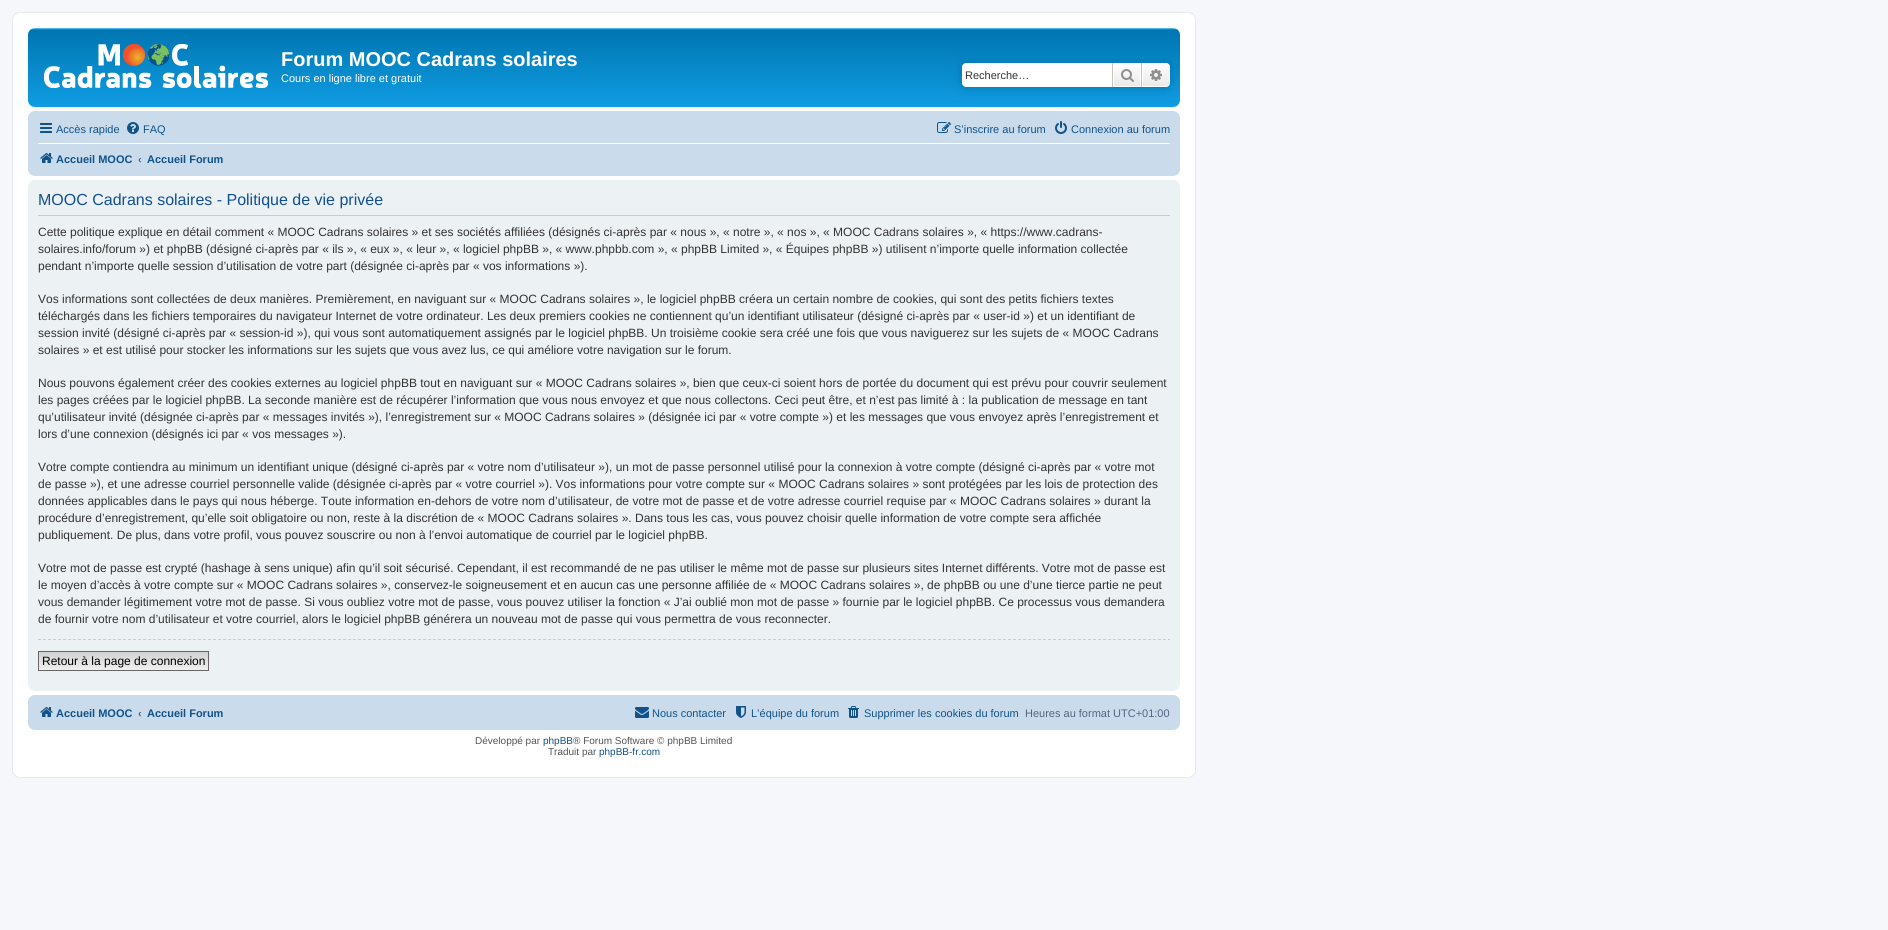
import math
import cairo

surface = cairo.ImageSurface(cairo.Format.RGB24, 1888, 930)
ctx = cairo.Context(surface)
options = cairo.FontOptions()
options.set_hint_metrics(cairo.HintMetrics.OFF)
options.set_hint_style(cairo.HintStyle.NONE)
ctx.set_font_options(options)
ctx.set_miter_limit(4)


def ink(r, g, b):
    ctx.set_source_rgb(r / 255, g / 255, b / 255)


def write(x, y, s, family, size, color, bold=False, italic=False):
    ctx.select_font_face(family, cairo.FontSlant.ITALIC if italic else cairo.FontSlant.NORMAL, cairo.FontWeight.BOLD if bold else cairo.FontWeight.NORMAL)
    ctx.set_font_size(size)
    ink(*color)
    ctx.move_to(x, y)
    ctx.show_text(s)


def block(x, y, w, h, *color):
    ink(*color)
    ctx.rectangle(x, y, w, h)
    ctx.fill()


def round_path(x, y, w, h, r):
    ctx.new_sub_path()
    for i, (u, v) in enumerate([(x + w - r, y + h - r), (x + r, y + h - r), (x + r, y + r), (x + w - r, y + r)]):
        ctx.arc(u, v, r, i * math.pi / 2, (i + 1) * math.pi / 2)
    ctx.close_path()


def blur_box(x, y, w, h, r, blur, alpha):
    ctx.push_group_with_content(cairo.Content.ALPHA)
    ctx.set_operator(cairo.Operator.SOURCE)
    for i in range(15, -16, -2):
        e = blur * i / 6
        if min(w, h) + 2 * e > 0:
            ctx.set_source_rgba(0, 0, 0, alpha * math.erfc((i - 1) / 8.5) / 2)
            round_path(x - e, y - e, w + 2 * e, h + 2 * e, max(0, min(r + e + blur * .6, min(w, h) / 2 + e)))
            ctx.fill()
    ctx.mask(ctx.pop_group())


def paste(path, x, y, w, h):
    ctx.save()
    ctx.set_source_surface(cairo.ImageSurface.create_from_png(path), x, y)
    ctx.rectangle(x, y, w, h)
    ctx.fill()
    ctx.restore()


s1 = dict(family="Liberation Sans", size=20, color=(255, 255, 255), bold=True)
s2 = dict(family="Liberation Sans", size=11, color=(255, 255, 255))
s3 = dict(family="Liberation Sans", size=11, color=(51, 51, 51))
s4 = dict(family="Liberation Sans", size=11, color=(16, 82, 137))
s5 = dict(family="Liberation Sans", size=11, color=(16, 82, 137), bold=True)
s6 = dict(family="Liberation Sans", size=11, color=(83, 100, 130), bold=True)
s7 = dict(family="Liberation Sans", size=16, color=(17, 80, 152))
s8 = dict(family="Liberation Sans", size=12, color=(51, 51, 51))
s9 = dict(family="Liberation Sans", size=12, color=(0, 0, 0))
s10 = dict(family="Liberation Sans", size=11, color=(83, 100, 130))
s11 = dict(family="Liberation Sans", size=10, color=(85, 85, 85))
s12 = dict(family="Liberation Sans", size=10, color=(16, 82, 137))

ink(245, 247, 250)
ctx.paint()
ink(255, 255, 255)
round_path(12.5, 12.5, 1183, 765, 7.5)
ctx.fill_preserve()
ink(230, 233, 237)
ctx.set_line_width(1)
ctx.stroke()
gradient = cairo.LinearGradient(604, 28, 604, 120)
gradient.add_color_stop_rgba(0, 0.416, 0.808, 1, 1)
gradient.add_color_stop_rgba(0.02, 0, 0.463, 0.694, 1)
gradient.add_color_stop_rgba(1, 0.071, 0.639, 0.922, 1)
ctx.set_source(gradient)
round_path(28, 28, 1152, 79, 7)
ctx.fill()
paste("pic1.png", 44, 44, 224, 44)
write(281, 66, "Forum MOOC Cadrans solaires", **s1)
write(281, 82, "Cours en ligne libre et gratuit", **s2)
ink(0, 117, 176)
blur_box(962, 63, 208, 24, 4, 5, 1)
ink(255, 255, 255)
ctx.new_path()
ctx.move_to(966, 63)
ctx.line_to(1112, 63)
ctx.line_to(1112, 87)
ctx.line_to(966, 87)
ctx.curve_to(964, 87, 962, 85, 962, 83)
ctx.line_to(962, 67)
ctx.curve_to(962, 65, 964, 63, 966, 63)
ctx.close_path()
ctx.fill()
write(965, 79, "Recherche…", **s3)
gradient = cairo.LinearGradient(1127, 63, 1127, 87)
gradient.add_color_stop_rgba(0, 1, 1, 1, 1)
gradient.add_color_stop_rgba(1, 0.914, 0.914, 0.914, 1)
ctx.set_source(gradient)
ctx.rectangle(1114, 64, 26, 22)
ctx.fill()
ctx.rectangle(1113.5, 63.5, 27, 23)
ink(255, 255, 255)
ctx.stroke()
block(1141, 63, 1, 24, 199, 195, 191)
block(1112, 63, 1, 24, 199, 195, 191)
paste("pic2.png", 1121, 69, 13, 13)
gradient = cairo.LinearGradient(1156, 63, 1156, 87)
gradient.add_color_stop_rgba(0, 1, 1, 1, 1)
gradient.add_color_stop_rgba(1, 0.914, 0.914, 0.914, 1)
ctx.set_source(gradient)
ctx.new_path()
ctx.move_to(1142.5, 63.5)
ctx.line_to(1166, 63.5)
ctx.curve_to(1168, 63.5, 1169.5, 65, 1169.5, 67)
ctx.line_to(1169.5, 83)
ctx.curve_to(1169.5, 85, 1168, 86.5, 1166, 86.5)
ctx.line_to(1142.5, 86.5)
ctx.close_path()
ctx.fill_preserve()
ink(255, 255, 255)
ctx.stroke()
paste("pic3.png", 1150, 69, 12, 12)
ink(202, 220, 235)
round_path(28, 111, 1152, 65, 7)
ctx.fill()
paste("pic4.png", 40, 123, 12, 10)
write(56, 133, "Accès rapide", **s4)
paste("pic5.png", 127, 122, 12, 12)
write(143, 133, "FAQ", **s4)
paste("pic6.png", 937, 122, 14, 11)
write(954, 133, "S’inscrire au forum", **s4)
paste("pic7.png", 1055, 121, 12, 13)
write(1071, 133, "Connexion au forum", **s4)
block(38, 143, 1132, 1, 255, 255, 255)
paste("pic8.png", 40, 153, 13, 10)
write(56, 163, "Accueil MOOC", **s5)
write(138, 163, "‹", **s6)
write(147, 163, "Accueil Forum", **s5)
ink(236, 241, 243)
round_path(28, 180, 1152, 511, 7)
ctx.fill()
block(38, 215, 1132, 1, 204, 204, 204)
write(38, 205, "MOOC Cadrans solaires - Politique de vie privée", **s7)
write(38, 236, "Cette politique explique en détail comment « MOOC Cadrans solaires » et ses sociétés affiliées (désignés ci-après par « nous », « notre », « nos », « MOOC Cadrans solaires », « https://www.cadrans-", **s8)
write(38, 253, "solaires.info/forum ») et phpBB (désigné ci-après par « ils », « eux », « leur », « logiciel phpBB », « www.phpbb.com », « phpBB Limited », « Équipes phpBB ») utilisent n’importe quelle information collectée", **s8)
write(38, 270, "pendant n’importe quelle session d’utilisation de votre part (désignée ci-après par « vos informations »).", **s8)
write(38, 303, "Vos informations sont collectées de deux manières. Premièrement, en naviguant sur « MOOC Cadrans solaires », le logiciel phpBB créera un certain nombre de cookies, qui sont des petits fichiers textes", **s8)
write(38, 320, "téléchargés dans les fichiers temporaires du navigateur Internet de votre ordinateur. Les deux premiers cookies ne contiennent qu’un identifiant utilisateur (désigné ci-après par « user-id ») et un identifiant de", **s8)
write(38, 337, "session invité (désigné ci-après par « session-id »), qui vous sont automatiquement assignés par le logiciel phpBB. Un troisième cookie sera créé une fois que vous naviguerez sur les sujets de « MOOC Cadrans", **s8)
write(38, 354, "solaires » et est utilisé pour stocker les informations sur les sujets que vous avez lus, ce qui améliore votre navigation sur le forum.", **s8)
write(38, 387, "Nous pouvons également créer des cookies externes au logiciel phpBB tout en naviguant sur « MOOC Cadrans solaires », bien que ceux-ci soient hors de portée du document qui est prévu pour couvrir seulement", **s8)
write(38, 404, "les pages créées par le logiciel phpBB. La seconde manière est de récupérer l’information que vous nous envoyez et que nous collectons. Ceci peut être, et n’est pas limité à : la publication de message en tant", **s8)
write(38, 421, "qu’utilisateur invité (désignée ci-après par « messages invités »), l’enregistrement sur « MOOC Cadrans solaires » (désignée ici par « votre compte ») et les messages que vous envoyez après l’enregistrement et", **s8)
write(38, 438, "lors d’une connexion (désignés ici par « vos messages »).", **s8)
write(38, 471, "Votre compte contiendra au minimum un identifiant unique (désigné ci-après par « votre nom d’utilisateur »), un mot de passe personnel utilisé pour la connexion à votre compte (désigné ci-après par « votre mot", **s8)
write(38, 488, "de passe »), et une adresse courriel personnelle valide (désignée ci-après par « votre courriel »). Vos informations pour votre compte sur « MOOC Cadrans solaires » sont protégées par les lois de protection des", **s8)
write(38, 505, "données applicables dans le pays qui nous héberge. Toute information en-dehors de votre nom d’utilisateur, de votre mot de passe et de votre adresse courriel requise par « MOOC Cadrans solaires » durant la", **s8)
write(38, 522, "procédure d’enregistrement, qu’elle soit obligatoire ou non, reste à la discrétion de « MOOC Cadrans solaires ». Dans tous les cas, vous pouvez choisir quelle information de votre compte sera affichée", **s8)
write(38, 539, "publiquement. De plus, dans votre profil, vous pouvez souscrire ou non à l’envoi automatique de courriel par le logiciel phpBB.", **s8)
write(38, 572, "Votre mot de passe est crypté (hashage à sens unique) afin qu’il soit sécurisé. Cependant, il est recommandé de ne pas utiliser le même mot de passe sur plusieurs sites Internet différents. Votre mot de passe est", **s8)
write(38, 589, "le moyen d’accès à votre compte sur « MOOC Cadrans solaires », conservez-le soigneusement et en aucun cas une personne affiliée de « MOOC Cadrans solaires », de phpBB ou une d’une tierce partie ne peut", **s8)
write(38, 606, "vous demander légitimement votre mot de passe. Si vous oubliez votre mot de passe, vous pouvez utiliser la fonction « J’ai oublié mon mot de passe » fournie par le logiciel phpBB. Ce processus vous demandera", **s8)
write(38, 623, "de fournir votre nom d’utilisateur et votre courriel, alors le logiciel phpBB générera un nouveau mot de passe qui vous permettra de vous reconnecter.", **s8)
ctx.new_path()
ctx.move_to(38, 639.5)
ctx.line_to(1170, 639.5)
ink(204, 204, 204)
ctx.set_dash([3, 2])
ctx.stroke()
gradient = cairo.LinearGradient(124, 652, 124, 670)
gradient.add_color_stop_rgba(0, 0.824, 0.824, 0.824, 1)
gradient.add_color_stop_rgba(1, 0.937, 0.937, 0.937, 1)
ctx.set_source(gradient)
ctx.rectangle(39, 652, 169, 18)
ctx.fill()
ctx.rectangle(38.5, 651.5, 170, 19)
ink(102, 102, 102)
ctx.set_dash([])
ctx.stroke()
write(42, 665, "Retour à la page de connexion", **s9)
ink(202, 220, 235)
round_path(28, 695, 1152, 35, 7)
ctx.fill()
paste("pic8.png", 40, 707, 13, 10)
write(56, 717, "Accueil MOOC", **s5)
write(138, 717, "‹", **s6)
write(147, 717, "Accueil Forum", **s5)
paste("pic9.png", 635, 707, 14, 11)
write(652, 717, "Nous contacter", **s4)
paste("pic10.png", 736, 706, 10, 12)
write(751, 717, "L’équipe du forum", **s4)
paste("pic11.png", 848, 706, 11, 12)
write(864, 717, "Supprimer les cookies du forum", **s4)
write(1025, 717, "Heures au format UTC+01:00", **s10)
write(475, 744, "Développé par", **s11)
write(543, 744, "phpBB", **s12)
write(573, 744, "® Forum Software © phpBB Limited", **s11)
write(548, 755, "Traduit par", **s11)
write(599, 755, "phpBB-fr.com", **s12)
surface.write_to_png("screenshot.png")
